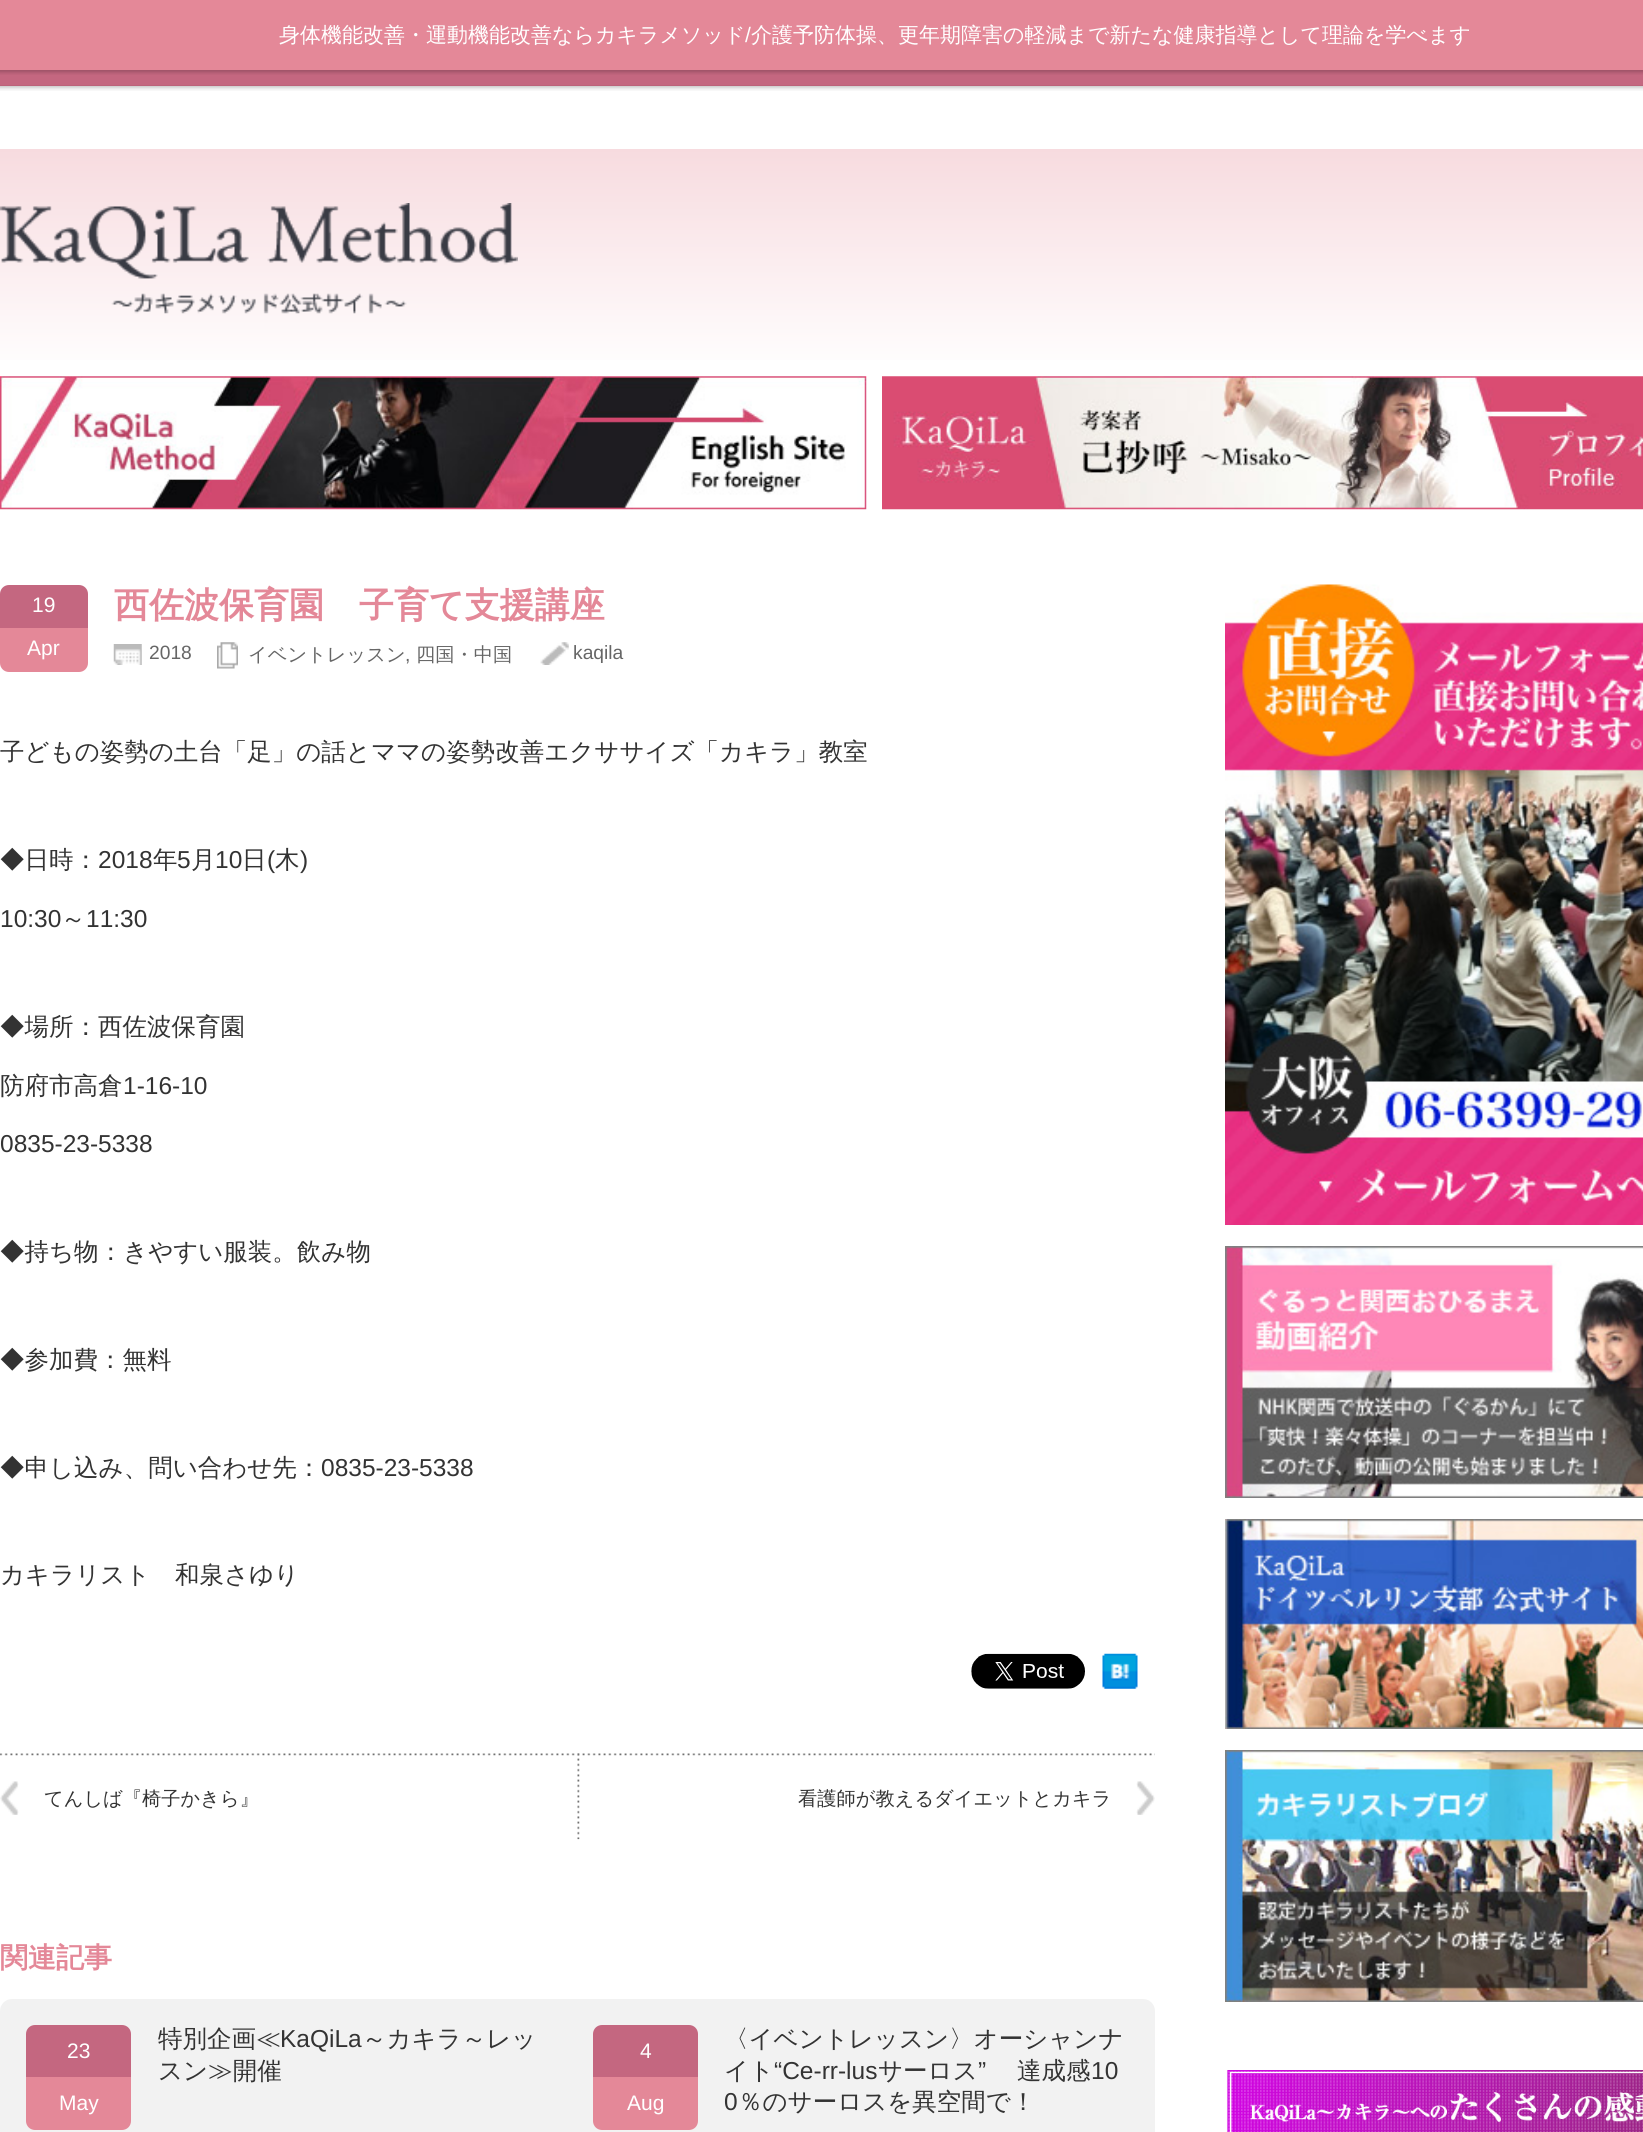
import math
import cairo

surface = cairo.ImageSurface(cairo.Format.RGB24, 1643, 2132)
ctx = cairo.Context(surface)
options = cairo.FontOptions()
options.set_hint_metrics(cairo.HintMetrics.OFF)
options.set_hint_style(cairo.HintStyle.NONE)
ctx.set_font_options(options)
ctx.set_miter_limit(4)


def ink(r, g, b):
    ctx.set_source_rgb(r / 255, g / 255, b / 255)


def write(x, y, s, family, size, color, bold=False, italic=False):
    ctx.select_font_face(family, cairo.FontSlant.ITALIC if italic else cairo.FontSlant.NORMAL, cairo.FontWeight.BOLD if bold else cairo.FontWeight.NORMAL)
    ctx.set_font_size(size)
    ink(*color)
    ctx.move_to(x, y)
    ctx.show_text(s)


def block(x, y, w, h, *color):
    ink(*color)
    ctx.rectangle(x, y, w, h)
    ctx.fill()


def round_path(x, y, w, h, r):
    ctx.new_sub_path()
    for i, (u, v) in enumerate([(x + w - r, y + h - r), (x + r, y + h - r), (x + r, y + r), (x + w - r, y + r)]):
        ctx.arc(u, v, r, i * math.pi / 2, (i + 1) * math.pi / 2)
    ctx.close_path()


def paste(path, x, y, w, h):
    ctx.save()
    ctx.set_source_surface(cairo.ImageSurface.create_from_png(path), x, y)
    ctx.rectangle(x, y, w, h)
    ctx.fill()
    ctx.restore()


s1 = dict(family="WenQuanYi Zen Hei Medium", size=21, color=(255, 255, 255))
s2 = dict(family="Liberation Sans", size=21, color=(255, 255, 255))
s3 = dict(family="WenQuanYi Zen Hei", size=35, color=(228, 136, 152), bold=True)
s4 = dict(family="Liberation Sans", size=19.25, color=(102, 102, 102))
s5 = dict(family="WenQuanYi Zen Hei Medium", size=19.25, color=(102, 102, 102))
s6 = dict(family="WenQuanYi Zen Hei Medium", size=24.5, color=(51, 51, 51))
s7 = dict(family="Liberation Sans", size=24.5, color=(51, 51, 51))
s8 = dict(family="WenQuanYi Zen Hei Medium", size=19.25, color=(51, 51, 51))
s9 = dict(family="WenQuanYi Zen Hei", size=28, color=(228, 136, 152), bold=True)

ink(255, 255, 255)
ctx.paint()
block(0, 0, 1643, 70, 228, 136, 152)
write(279, 42, "身体機能改善・運動機能改善ならカキラメソッド", **s1)
write(745, 42, "/", **s2)
write(751, 42, "介護予防体操、更年期障害の軽減まで新たな健康指導として理論を学べます", **s1)
block(0, 70, 1643, 16, 196, 103, 128)
paste("pic1.png", 0, 70, 1643, 5)
paste("pic2.png", 0, 85, 1643, 6)
gradient = cairo.LinearGradient(875, 149, 875, 376)
gradient.add_color_stop_rgba(0, 0.969, 0.859, 0.875, 1)
gradient.add_color_stop_rgba(1, 1, 1, 1, 1)
ctx.set_source(gradient)
ctx.rectangle(0, 149, 1643, 211)
ctx.fill()
paste("pic3.png", 0, 203, 518, 111)
paste("pic4.png", 0, 376, 867, 134)
paste("pic5.png", 882, 376, 761, 134)
ink(196, 103, 128)
ctx.new_path()
ctx.move_to(9, 585)
ctx.line_to(79, 585)
ctx.curve_to(84, 585, 88, 589, 88, 594)
ctx.line_to(88, 628)
ctx.line_to(0, 628)
ctx.line_to(0, 594)
ctx.curve_to(0, 589, 4, 585, 9, 585)
ctx.close_path()
ctx.fill()
write(32, 612, "19", **s2)
ink(228, 136, 152)
ctx.new_path()
ctx.move_to(0, 628)
ctx.line_to(88, 628)
ctx.line_to(88, 663)
ctx.curve_to(88, 668, 84, 672, 79, 672)
ctx.line_to(9, 672)
ctx.curve_to(4, 672, 0, 668, 0, 663)
ctx.close_path()
ctx.fill()
write(27, 655, "Apr", **s2)
write(114, 617, "西佐波保育園　子育て支援講座", **s3)
paste("pic6.png", 113, 644, 29, 21)
write(149, 659, "2018", **s4)
paste("pic7.png", 217, 642, 21, 27)
write(248, 661, "イベントレッスン", **s5)
write(405, 661, ",", **s4)
write(416, 661, "四国・中国", **s5)
paste("pic8.png", 540, 642, 29, 23)
write(573, 659, "kaqila", **s4)
write(0, 760, "子どもの姿勢の土台「足」の話とママの姿勢改善エクササイズ「カキラ」教室", **s6)
write(0, 868, "◆日時：", **s6)
write(98, 868, "2018", **s7)
write(153, 868, "年", **s6)
write(177, 868, "5", **s7)
write(191, 868, "月", **s6)
write(215, 868, "10", **s7)
write(242, 868, "日", **s6)
write(267, 868, "(", **s7)
write(275, 868, "木", **s6)
write(300, 868, ")", **s7)
write(0, 927, "10:30", **s7)
write(61, 927, "～", **s6)
write(86, 927, "11:30", **s7)
write(0, 1035, "◆場所：西佐波保育園", **s6)
write(0, 1094, "防府市高倉", **s6)
write(123, 1094, "1-16-10", **s7)
write(0, 1152, "0835-23-5338", **s7)
write(0, 1260, "◆持ち物：きやすい服装。飲み物", **s6)
write(0, 1368, "◆参加費：無料", **s6)
write(0, 1476, "◆申し込み、問い合わせ先：", **s6)
write(321, 1476, "0835-23-5338", **s7)
write(0, 1583, "カキラリスト　和泉さゆり", **s6)
paste("pic9.png", 971, 1653, 114, 36)
paste("pic10.png", 1102, 1653, 36, 36)
paste("pic11.png", 0, 1753, 1155, 87)
paste("pic12.png", 0, 1781, 19, 34)
write(44, 1805, "てんしば『椅子かきら』", **s8)
paste("pic13.png", 1136, 1781, 19, 34)
write(798, 1805, "看護師が教えるダイエットとカキラ", **s8)
write(0, 1967, "関連記事", **s9)
ink(242, 242, 242)
round_path(0, 1999, 1155, 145, 12)
ctx.fill()
ink(196, 103, 128)
ctx.new_path()
ctx.move_to(35, 2025)
ctx.line_to(122, 2025)
ctx.curve_to(127, 2025, 131, 2029, 131, 2034)
ctx.line_to(131, 2077)
ctx.line_to(26, 2077)
ctx.line_to(26, 2034)
ctx.curve_to(26, 2029, 30, 2025, 35, 2025)
ctx.close_path()
ctx.fill()
write(67, 2058, "23", **s2)
ink(228, 136, 152)
ctx.new_path()
ctx.move_to(26, 2077)
ctx.line_to(131, 2077)
ctx.line_to(131, 2121)
ctx.curve_to(131, 2126, 127, 2130, 122, 2130)
ctx.line_to(35, 2130)
ctx.curve_to(30, 2130, 26, 2126, 26, 2121)
ctx.close_path()
ctx.fill()
write(59, 2110, "May", **s2)
write(158, 2047, "特別企画≪", **s6)
write(280, 2047, "KaQiLa", **s7)
write(362, 2047, "～カキラ～レッ", **s6)
write(158, 2079, "スン≫開催", **s6)
ink(196, 103, 128)
ctx.new_path()
ctx.move_to(602, 2025)
ctx.line_to(689, 2025)
ctx.curve_to(694, 2025, 698, 2029, 698, 2034)
ctx.line_to(698, 2077)
ctx.line_to(593, 2077)
ctx.line_to(593, 2034)
ctx.curve_to(593, 2029, 597, 2025, 602, 2025)
ctx.close_path()
ctx.fill()
write(640, 2058, "4", **s2)
ink(228, 136, 152)
ctx.new_path()
ctx.move_to(593, 2077)
ctx.line_to(698, 2077)
ctx.line_to(698, 2121)
ctx.curve_to(698, 2126, 694, 2130, 689, 2130)
ctx.line_to(602, 2130)
ctx.curve_to(597, 2130, 593, 2126, 593, 2121)
ctx.close_path()
ctx.fill()
write(627, 2110, "Aug", **s2)
write(724, 2047, "〈イベントレッスン〉オーシャンナ", **s6)
write(724, 2079, "イト", **s6)
write(774, 2079, "“Ce-rr-lus", **s7)
write(878, 2079, "サーロス", **s6)
write(978, 2079, "”", **s7)
write(1017, 2079, "達成感", **s6)
write(1091, 2079, "10", **s7)
write(724, 2110, "0", **s7)
write(738, 2110, "％のサーロスを異空間で！", **s6)
paste("pic14.png", 1225, 584, 418, 641)
paste("pic15.png", 1225, 1246, 418, 252)
paste("pic16.png", 1225, 1519, 418, 210)
paste("pic17.png", 1225, 1750, 418, 252)
paste("pic18.png", 1226, 2070, 417, 62)
surface.write_to_png("screenshot.png")
